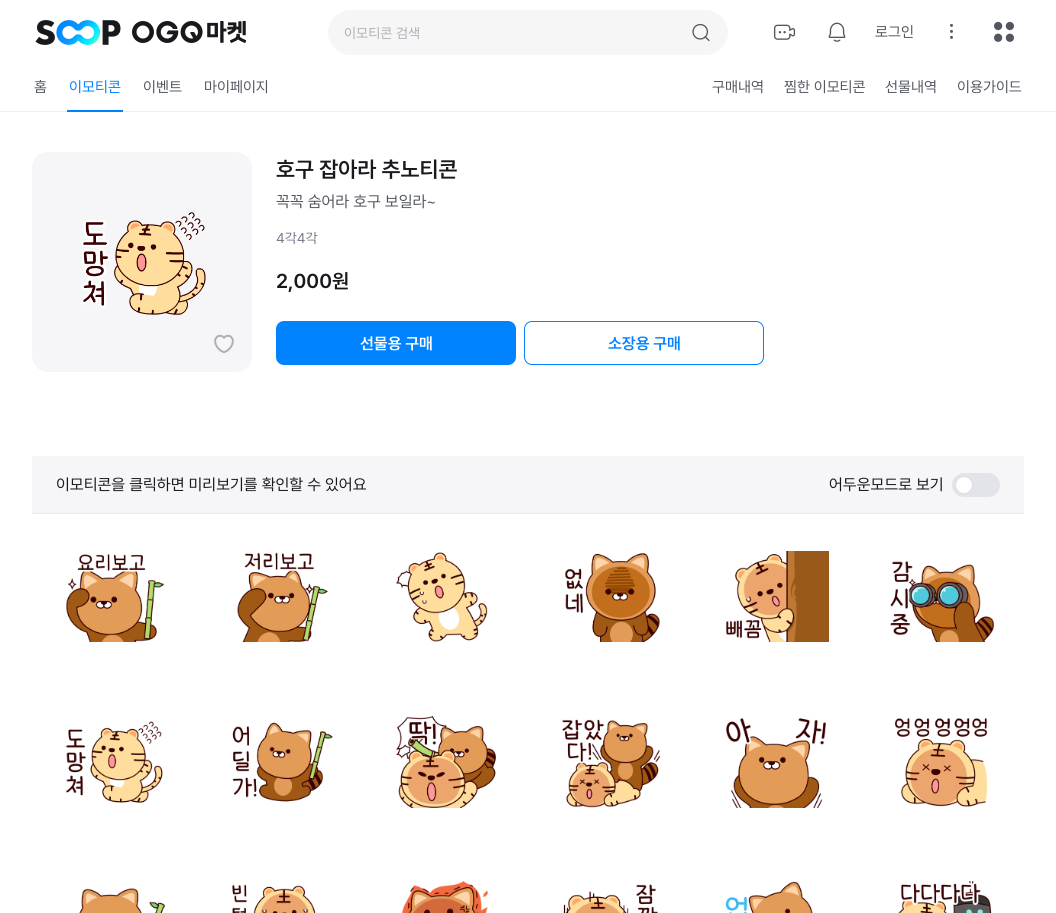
import math
import cairo

surface = cairo.ImageSurface(cairo.Format.RGB24, 1056, 913)
ctx = cairo.Context(surface)
options = cairo.FontOptions()
options.set_hint_metrics(cairo.HintMetrics.OFF)
options.set_hint_style(cairo.HintStyle.NONE)
ctx.set_font_options(options)
ctx.set_miter_limit(4)


def ink(r, g, b):
    ctx.set_source_rgb(r / 255, g / 255, b / 255)


def write(x, y, s, family, size, color, bold=False, italic=False):
    ctx.select_font_face(family, cairo.FontSlant.ITALIC if italic else cairo.FontSlant.NORMAL, cairo.FontWeight.BOLD if bold else cairo.FontWeight.NORMAL)
    ctx.set_font_size(size)
    ink(*color)
    ctx.move_to(x, y)
    ctx.show_text(s)


def block(x, y, w, h, *color):
    ink(*color)
    ctx.rectangle(x, y, w, h)
    ctx.fill()


def round_path(x, y, w, h, r):
    ctx.new_sub_path()
    for i, (u, v) in enumerate([(x + w - r, y + h - r), (x + r, y + h - r), (x + r, y + r), (x + w - r, y + r)]):
        ctx.arc(u, v, r, i * math.pi / 2, (i + 1) * math.pi / 2)
    ctx.close_path()


def blur_box(x, y, w, h, r, blur, alpha):
    ctx.push_group_with_content(cairo.Content.ALPHA)
    ctx.set_operator(cairo.Operator.SOURCE)
    for i in range(15, -16, -2):
        e = blur * i / 6
        if min(w, h) + 2 * e > 0:
            ctx.set_source_rgba(0, 0, 0, alpha * math.erfc((i - 1) / 8.5) / 2)
            round_path(x - e, y - e, w + 2 * e, h + 2 * e, max(0, min(r + e + blur * .6, min(w, h) / 2 + e)))
            ctx.fill()
    ctx.mask(ctx.pop_group())


def paste(path, x, y, w, h):
    ctx.save()
    ctx.set_source_surface(cairo.ImageSurface.create_from_png(path), x, y)
    ctx.rectangle(x, y, w, h)
    ctx.fill()
    ctx.restore()


s1 = dict(family="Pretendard", size=14, color=(172, 176, 185))
s2 = dict(family="Pretendard", size=15, color=(82, 86, 97))
s3 = dict(family="Pretendard", size=15, color=(1, 130, 255))
s4 = dict(family="Pretendard SemiBold", size=22, color=(23, 25, 28))
s5 = dict(family="Pretendard", size=16, color=(82, 86, 97))
s6 = dict(family="Pretendard", size=14, color=(117, 123, 138))
s7 = dict(family="Pretendard SemiBold", size=20, color=(23, 25, 28))
s8 = dict(family="Pretendard SemiBold", size=16, color=(255, 255, 255))
s9 = dict(family="Pretendard SemiBold", size=16, color=(1, 130, 255))
s10 = dict(family="Pretendard", size=16, color=(23, 25, 28))

ink(255, 255, 255)
ctx.paint()
block(0, 111, 1056, 1, 238, 238, 238)
paste("pic1.png", 35, 20, 86, 25)
paste("pic2.png", 132, 21, 115, 22)
ink(246, 246, 246)
round_path(328, 10, 400, 45, 22.5)
ctx.fill()
write(344, 38, "이모티콘 검색", **s1)
paste("pic3.png", 692, 23, 18, 19)
paste("pic4.png", 773, 24, 23, 16)
paste("pic5.png", 828, 22, 18, 20)
write(875, 37, "로그인", **s2)
paste("pic6.png", 950, 23, 3, 16)
paste("pic7.png", 994, 21, 20, 21)
write(34, 92, "홈", **s2)
write(69, 92, "이모티콘", **s3)
block(67, 110, 56, 2, 1, 130, 255)
write(143, 92, "이벤트", **s2)
write(204, 92, "마이페이지", **s2)
write(712, 92, "구매내역", **s2)
write(784, 92, "찜한 이모티콘", **s2)
write(885, 92, "선물내역", **s2)
write(957, 92, "이용가이드", **s2)
ink(246, 246, 249)
round_path(32, 152, 220, 220, 16)
ctx.fill()
paste("pic8.png", 81, 212, 125, 103)
paste("pic9.png", 214, 334, 20, 19)
write(276, 177, "호구 잡아라 추노티콘", **s4)
write(276, 207, "꼭꼭 숨어라 호구 보일라~", **s5)
write(276, 243, "4각4각", **s6)
write(276, 288, "2,000원", **s7)
ink(1, 130, 255)
round_path(276, 321, 240, 44, 8)
ctx.fill()
write(360, 349, "선물용 구매", **s8)
round_path(524.5, 321.5, 239, 43, 7.5)
ink(1, 130, 255)
ctx.set_line_width(1)
ctx.stroke()
write(608, 349, "소장용 구매", **s9)
block(32, 456, 992, 57, 246, 246, 249)
block(32, 513, 992, 1, 233, 234, 238)
write(56, 490, "이모티콘을 클릭하면 미리보기를 확인할 수 있어요", **s10)
write(829, 490, "어두운모드로 보기", **s10)
ink(226, 228, 233)
round_path(952, 473, 48, 24, 12)
ctx.fill()
ink(23, 25, 28)
blur_box(956, 477, 16, 16, 8, 1, 0.1)
ink(255, 255, 255)
ctx.arc(964, 485, 8, 0, 2 * math.pi)
ctx.fill()
paste("pic10.png", 66, 554, 99, 88)
paste("pic11.png", 237, 552, 91, 90)
paste("pic12.png", 396, 552, 92, 90)
paste("pic13.png", 565, 553, 95, 89)
paste("pic14.png", 726, 551, 103, 91)
paste("pic15.png", 890, 561, 104, 81)
paste("pic16.png", 65, 721, 98, 82)
paste("pic17.png", 232, 722, 101, 80)
paste("pic18.png", 396, 716, 101, 92)
paste("pic19.png", 562, 719, 99, 89)
paste("pic20.png", 726, 718, 100, 90)
paste("pic21.png", 895, 718, 93, 89)
paste("pic22.png", 79, 888, 86, 25)
paste("pic23.png", 232, 884, 84, 29)
paste("pic24.png", 402, 881, 86, 32)
paste("pic25.png", 563, 884, 95, 29)
paste("pic26.png", 725, 881, 88, 32)
paste("pic27.png", 898, 881, 94, 32)
surface.write_to_png("screenshot.png")
